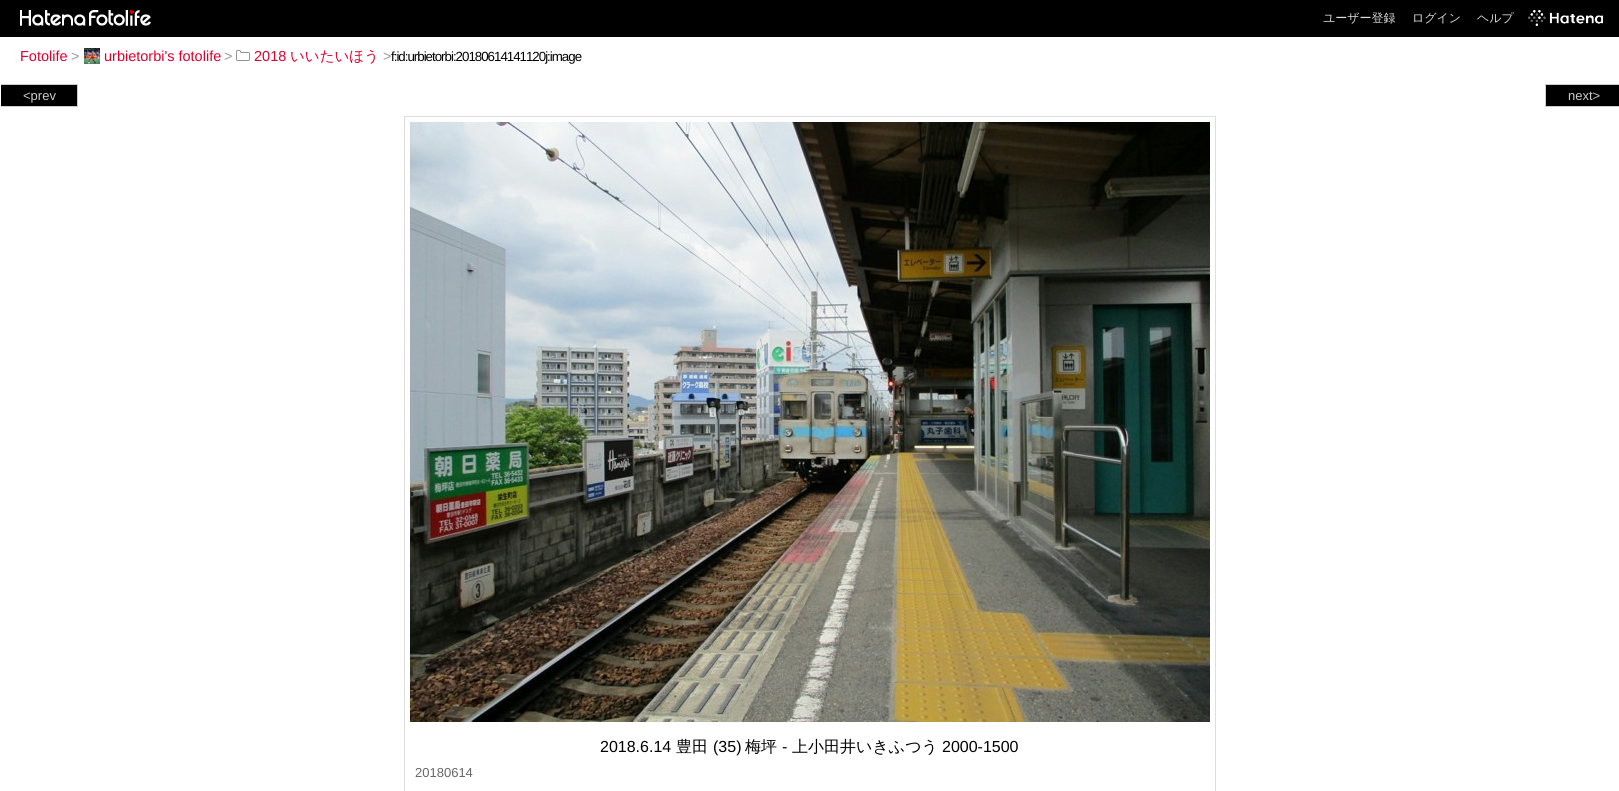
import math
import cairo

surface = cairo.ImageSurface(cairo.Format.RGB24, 1619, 791)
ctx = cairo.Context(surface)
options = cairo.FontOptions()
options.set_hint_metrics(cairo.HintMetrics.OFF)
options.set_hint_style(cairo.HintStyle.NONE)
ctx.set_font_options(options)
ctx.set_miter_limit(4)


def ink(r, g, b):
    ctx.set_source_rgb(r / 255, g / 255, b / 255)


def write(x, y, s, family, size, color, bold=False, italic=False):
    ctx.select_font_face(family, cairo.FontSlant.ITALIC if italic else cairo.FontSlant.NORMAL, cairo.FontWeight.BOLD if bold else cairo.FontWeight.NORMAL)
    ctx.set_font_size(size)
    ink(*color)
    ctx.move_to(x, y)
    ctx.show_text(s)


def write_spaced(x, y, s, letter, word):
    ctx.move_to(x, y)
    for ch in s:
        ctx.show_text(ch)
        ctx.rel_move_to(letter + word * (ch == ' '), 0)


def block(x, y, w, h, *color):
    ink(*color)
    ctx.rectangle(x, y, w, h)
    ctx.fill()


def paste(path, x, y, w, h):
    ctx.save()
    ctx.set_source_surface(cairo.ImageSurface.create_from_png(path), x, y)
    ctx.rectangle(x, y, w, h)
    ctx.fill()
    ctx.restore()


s1 = dict(family="WenQuanYi Zen Hei Medium", size=12, color=(221, 221, 221))
s2 = dict(family="Liberation Sans", size=14.5, color=(222, 0, 47))
s3 = dict(family="Liberation Sans", size=14.5, color=(153, 153, 153))
s4 = dict(family="WenQuanYi Zen Hei Medium", size=14.5, color=(222, 0, 47))
s5 = dict(family="Liberation Sans", size=13, color=(204, 204, 204))
s6 = dict(family="Liberation Sans", size=16, color=(0, 0, 0))
s7 = dict(family="WenQuanYi Zen Hei Medium", size=16, color=(0, 0, 0))
s8 = dict(family="Liberation Sans", size=13, color=(102, 102, 102))

ink(255, 255, 255)
ctx.paint()
block(0, 0, 1619, 37, 0, 0, 0)
paste("pic1.png", 20, 10, 66, 16)
paste("pic2.png", 89, 10, 62, 16)
write(1323, 22, "ユーザー登録", **s1)
write(1412, 22, "ログイン", **s1)
write(1477, 22, "ヘルプ", **s1)
paste("pic3.png", 1528, 10, 75, 16)
write(20, 61, "Fotolife", **s2)
write(71, 61, ">", **s3)
paste("pic4.png", 84, 48, 16, 16)
write(104, 61, "urbietorbi's fotolife", **s2)
write(224, 61, ">", **s3)
paste("pic5.png", 236, 50, 14, 11)
write(254, 61, "2018", **s2)
write(290, 61, "いいたいほう", **s4)
write(383, 61, ">", **s3)
ctx.set_font_size(13.3)
ink(0, 0, 0)
write_spaced(391, 61, "f:id:urbietorbi:20180614141120j:image", -1, 0)
block(1, 85, 76, 21, 0, 0, 0)
block(1, 84, 77, 1, 204, 204, 204)
block(77, 84, 1, 23, 204, 204, 204)
block(1, 106, 77, 1, 204, 204, 204)
write(23, 100, "<prev", **s5)
block(1546, 85, 73, 21, 0, 0, 0)
block(1545, 84, 74, 1, 204, 204, 204)
block(1545, 106, 74, 1, 204, 204, 204)
block(1545, 84, 1, 23, 204, 204, 204)
write(1568, 100, "next>", **s5)
ctx.rectangle(404.5, 116.5, 811, 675)
ink(222, 222, 222)
ctx.set_line_width(1)
ctx.stroke()
paste("pic6.png", 410, 122, 800, 600)
write(600, 752, "2018.6.14", **s6)
write(676, 752, "豊田", **s7)
write(713, 752, "(35)", **s6)
write(745, 752, "梅坪", **s7)
write(782, 752, "-", **s6)
write(792, 752, "上小田井いきふつう", **s7)
write(942, 752, "2000-1500", **s6)
write(415, 777, "20180614", **s8)
surface.write_to_png("screenshot.png")
